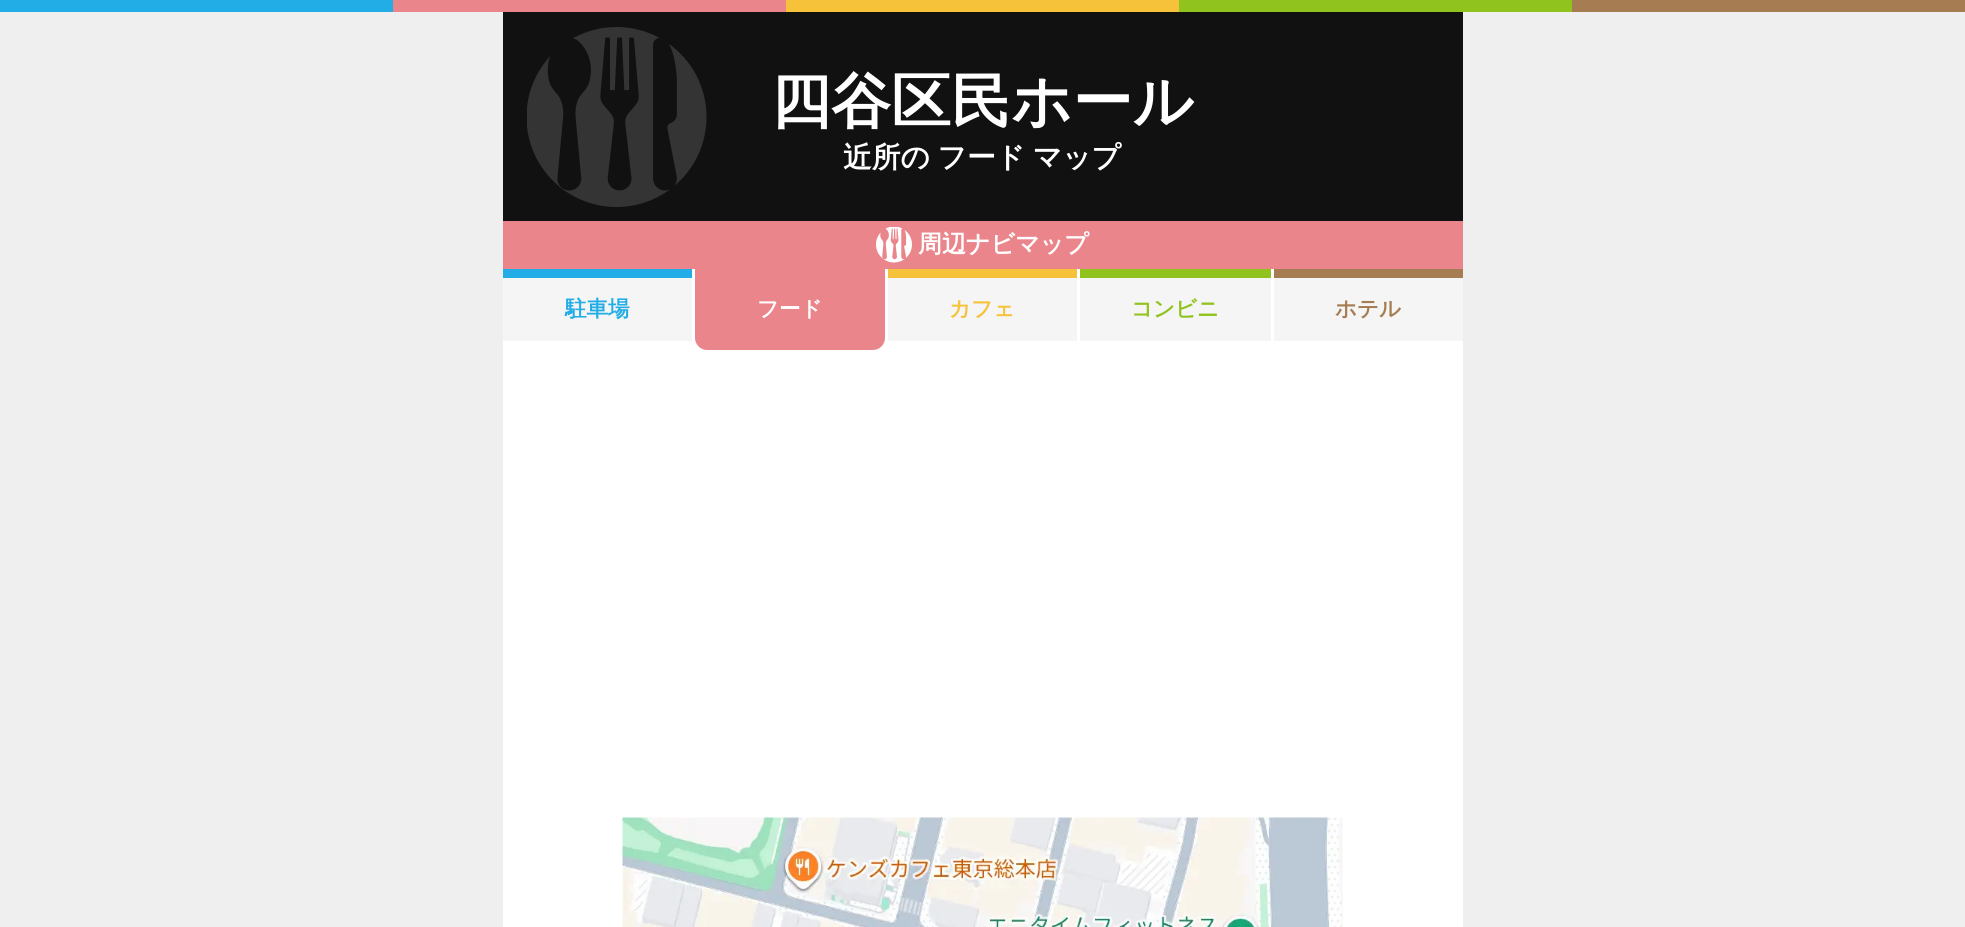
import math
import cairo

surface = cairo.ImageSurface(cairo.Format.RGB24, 1965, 927)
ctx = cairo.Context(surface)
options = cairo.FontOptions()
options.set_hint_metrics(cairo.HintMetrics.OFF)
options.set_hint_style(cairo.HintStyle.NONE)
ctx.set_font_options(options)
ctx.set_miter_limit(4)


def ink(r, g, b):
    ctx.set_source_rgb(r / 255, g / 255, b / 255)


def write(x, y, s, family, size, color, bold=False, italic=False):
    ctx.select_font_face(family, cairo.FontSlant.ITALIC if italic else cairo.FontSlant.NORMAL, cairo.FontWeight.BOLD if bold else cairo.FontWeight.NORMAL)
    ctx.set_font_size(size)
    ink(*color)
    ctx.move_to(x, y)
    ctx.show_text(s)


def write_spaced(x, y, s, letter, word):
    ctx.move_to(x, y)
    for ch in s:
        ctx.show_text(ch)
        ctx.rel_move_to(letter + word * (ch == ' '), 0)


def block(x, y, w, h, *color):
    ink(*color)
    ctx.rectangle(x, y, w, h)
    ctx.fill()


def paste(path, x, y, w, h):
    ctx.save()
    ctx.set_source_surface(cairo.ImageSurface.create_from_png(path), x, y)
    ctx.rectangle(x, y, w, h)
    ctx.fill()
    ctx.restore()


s1 = dict(family="WenQuanYi Zen Hei", size=60, color=(255, 255, 255), bold=True)
s2 = dict(family="WenQuanYi Zen Hei", size=24, color=(255, 255, 255), bold=True)
s3 = dict(family="WenQuanYi Zen Hei", size=21.5, color=(34, 173, 230), bold=True)
s4 = dict(family="WenQuanYi Zen Hei", size=21.5, color=(255, 255, 255), bold=True)
s5 = dict(family="WenQuanYi Zen Hei", size=21.5, color=(246, 194, 58), bold=True)
s6 = dict(family="WenQuanYi Zen Hei", size=21.5, color=(144, 195, 30), bold=True)
s7 = dict(family="WenQuanYi Zen Hei", size=21.5, color=(166, 124, 82), bold=True)

ink(239, 239, 239)
ctx.paint()
block(0, 0, 393, 12, 34, 173, 230)
block(393, 0, 393, 12, 234, 133, 139)
block(786, 0, 393, 12, 246, 194, 58)
block(1179, 0, 393, 12, 144, 195, 30)
block(1572, 0, 393, 12, 166, 124, 82)
block(503, 269, 960, 658, 255, 255, 255)
block(503, 12, 960, 209, 17, 17, 17)
paste("pic1.png", 527, 27, 180, 180)
write(771, 122, "四谷区民ホール", **s1)
ctx.set_font_size(28.75)
write_spaced(843, 167, "近所の フード マップ", 0, -1)
block(503, 221, 960, 48, 234, 133, 139)
paste("pic2.png", 876, 227, 36, 36)
write(918, 252, "周辺ナビマップ", **s2)
block(503, 278, 189, 63, 245, 245, 245)
block(503, 269, 189, 9, 34, 173, 230)
write(565, 316, "駐車場", **s3)
ink(234, 133, 139)
ctx.new_path()
ctx.move_to(695, 269)
ctx.line_to(885, 269)
ctx.line_to(885, 338)
ctx.curve_to(885, 344.5, 879.5, 350, 873, 350)
ctx.line_to(707, 350)
ctx.curve_to(700.5, 350, 695, 344.5, 695, 338)
ctx.close_path()
ctx.fill()
write(757, 316, "フード", **s4)
block(888, 278, 189, 63, 245, 245, 245)
block(888, 269, 189, 9, 246, 194, 58)
write(949, 316, "カフェ", **s5)
block(1080, 278, 191, 63, 245, 245, 245)
block(1080, 269, 191, 9, 144, 195, 30)
write(1131, 316, "コンビニ", **s6)
block(1274, 278, 189, 63, 245, 245, 245)
block(1274, 269, 189, 9, 166, 124, 82)
write(1335, 316, "ホテル", **s7)
paste("pic3.png", 622, 817, 721, 110)
surface.write_to_png("screenshot.png")
